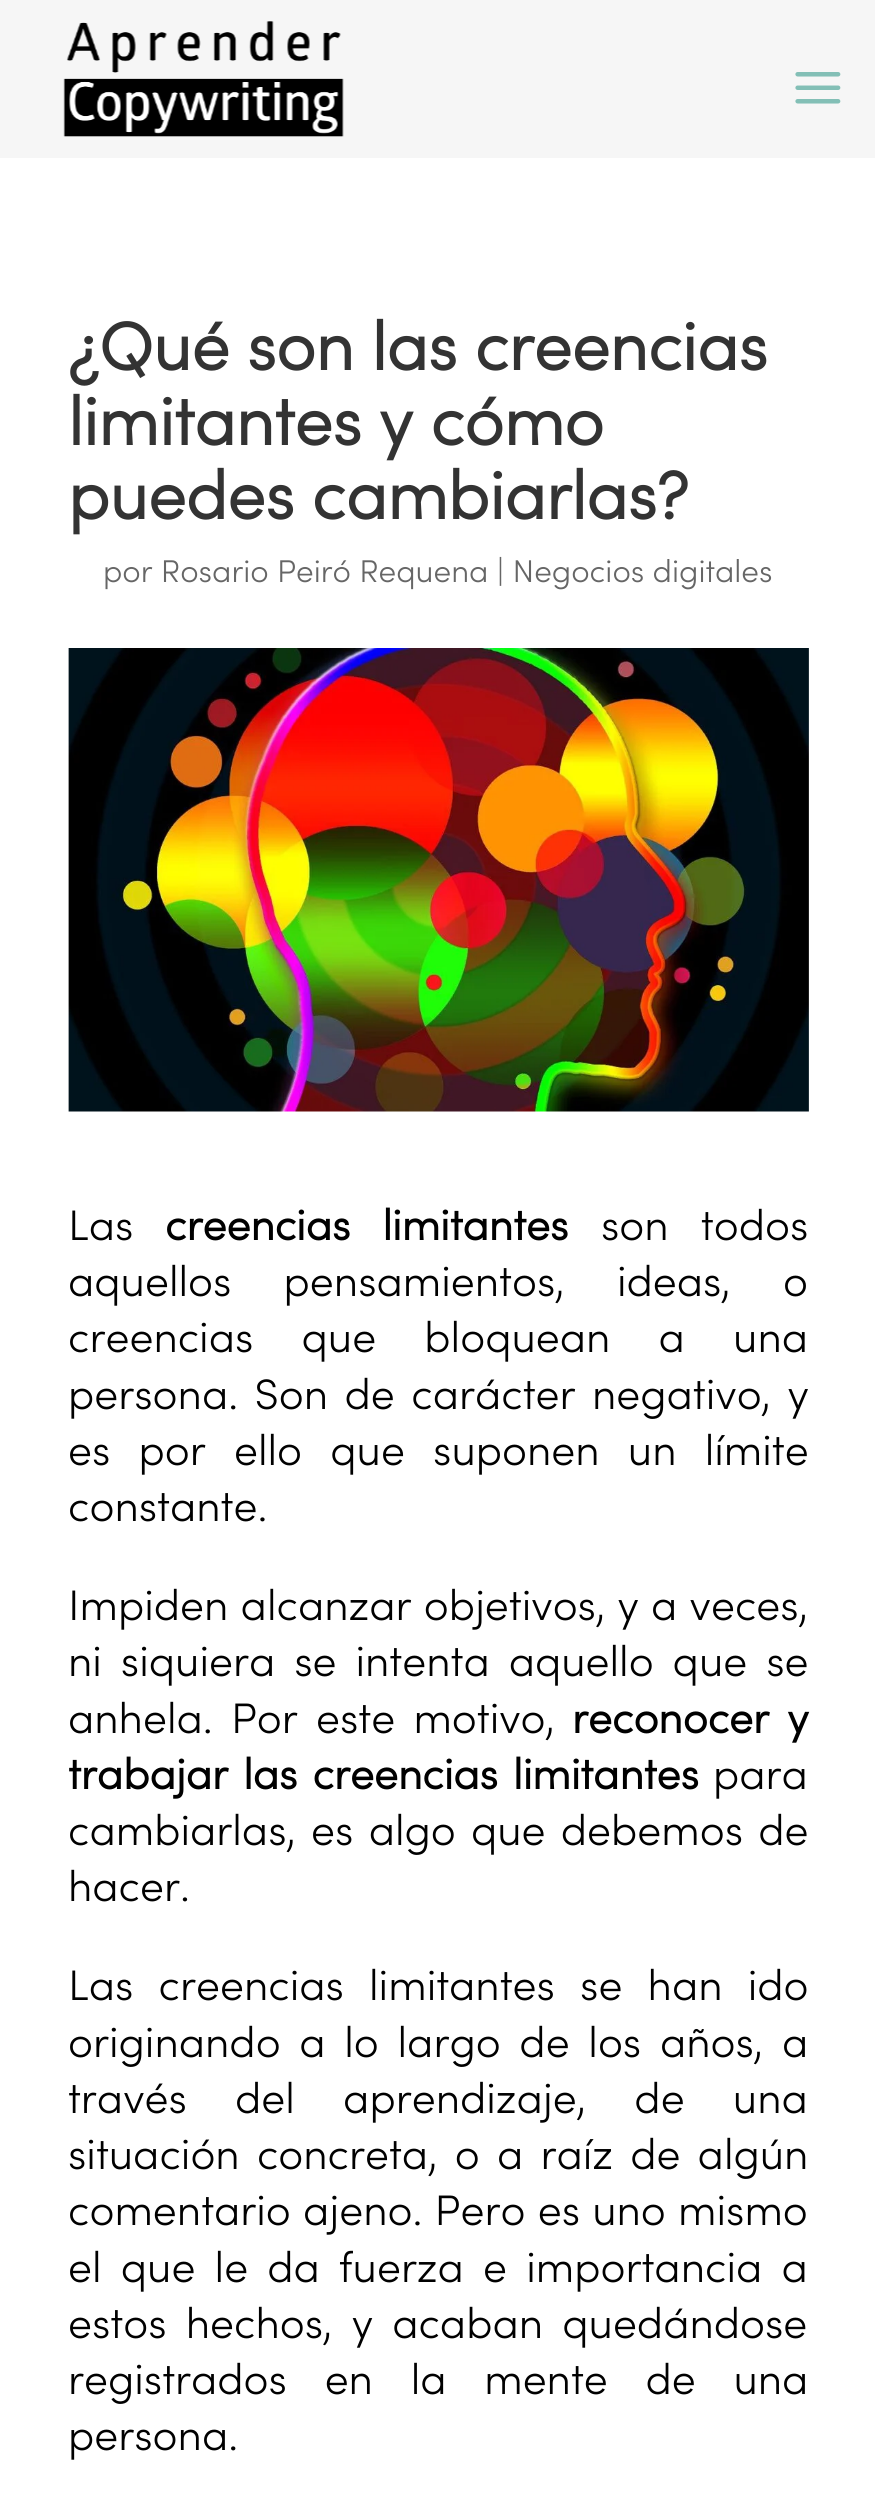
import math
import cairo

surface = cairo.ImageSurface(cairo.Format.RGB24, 875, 2500)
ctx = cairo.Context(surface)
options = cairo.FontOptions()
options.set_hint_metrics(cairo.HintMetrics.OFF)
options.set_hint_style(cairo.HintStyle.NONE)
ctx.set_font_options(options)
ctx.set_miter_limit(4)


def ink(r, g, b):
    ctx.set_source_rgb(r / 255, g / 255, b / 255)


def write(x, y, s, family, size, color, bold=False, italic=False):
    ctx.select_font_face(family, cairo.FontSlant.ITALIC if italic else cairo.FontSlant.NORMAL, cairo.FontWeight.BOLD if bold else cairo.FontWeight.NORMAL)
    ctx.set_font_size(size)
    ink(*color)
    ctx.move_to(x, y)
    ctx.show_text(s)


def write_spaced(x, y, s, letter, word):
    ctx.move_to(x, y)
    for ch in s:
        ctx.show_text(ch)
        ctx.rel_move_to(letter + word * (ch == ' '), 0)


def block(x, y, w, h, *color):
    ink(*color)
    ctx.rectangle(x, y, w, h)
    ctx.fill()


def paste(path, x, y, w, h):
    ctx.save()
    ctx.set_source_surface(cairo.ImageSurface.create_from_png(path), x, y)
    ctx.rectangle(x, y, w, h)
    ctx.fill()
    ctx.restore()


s1 = dict(family="Sofia", size=67.5, color=(51, 51, 51), bold=True)
s2 = dict(family="Sofia Light", size=31.5, color=(102, 102, 102))
s3 = dict(family="Sofia Light", size=42.75, color=(0, 0, 0))

ink(255, 255, 255)
ctx.paint()
block(0, 0, 875, 158, 246, 246, 246)
paste("pic1.png", 63, 21, 281, 116)
paste("pic2.png", 795, 72, 46, 32)
write(68, 370, "¿Qué son las creencias", **s1)
write(68, 445, "limitantes y cómo", **s1)
write(68, 519, "puedes cambiarlas?", **s1)
write(103, 582, "por Rosario Peiró Requena | Negocios digitales", **s2)
paste("pic3.png", 68, 648, 741, 464)
write(68, 1240, "Las", **s3)
ctx.select_font_face("Sofia", cairo.FontSlant.NORMAL, cairo.FontWeight.BOLD)
write_spaced(165, 1240, "creencias limitantes", 0, 21)
ctx.select_font_face("Sofia Light")
write_spaced(601, 1240, "son todos", 0, 21)
write_spaced(68, 1296, "aquellos pensamientos, ideas, o", 0, 41)
write_spaced(68, 1352, "creencias que bloquean a una", 0, 37)
write_spaced(68, 1409, "persona. Son de carácter negativo, y", 0, 5.25)
write_spaced(68, 1465, "es por ello que suponen un límite", 0, 17)
write(68, 1521, "constante.", **s3)
write_spaced(68, 1620, "Impiden alcanzar objetivos, y a veces,", 0, 1)
write_spaced(68, 1676, "ni siquiera se intenta aquello que se", 0, 7.75)
write_spaced(68, 1733, "anhela. Por este motivo,", 0, 7)
ctx.select_font_face("Sofia", cairo.FontSlant.NORMAL, cairo.FontWeight.BOLD)
write_spaced(572, 1733, "reconocer y", 0, 7)
write_spaced(68, 1789, "trabajar las creencias limitantes", 0, 4)
write(713, 1789, "para", **s3)
write_spaced(68, 1845, "cambiarlas, es algo que debemos de", 0, 4)
write(68, 1901, "hacer.", **s3)
write_spaced(68, 2000, "Las creencias limitantes se han ido", 0, 14)
write_spaced(68, 2057, "originando a lo largo de los años, a", 0, 7.5)
write_spaced(68, 2113, "través del aprendizaje, de una", 0, 37)
write_spaced(68, 2169, "situación concreta, o a raíz de algún", 0, 6)
write_spaced(68, 2225, "comentario ajeno. Pero es uno mismo", 0, 1)
write_spaced(68, 2282, "el que le da fuerza e importancia a", 0, 8)
write_spaced(68, 2338, "estos hechos, y acaban quedándose", 0, 8)
write_spaced(68, 2394, "registrados en la mente de una", 0, 26.5)
write(68, 2450, "persona.", **s3)
surface.write_to_png("screenshot.png")
